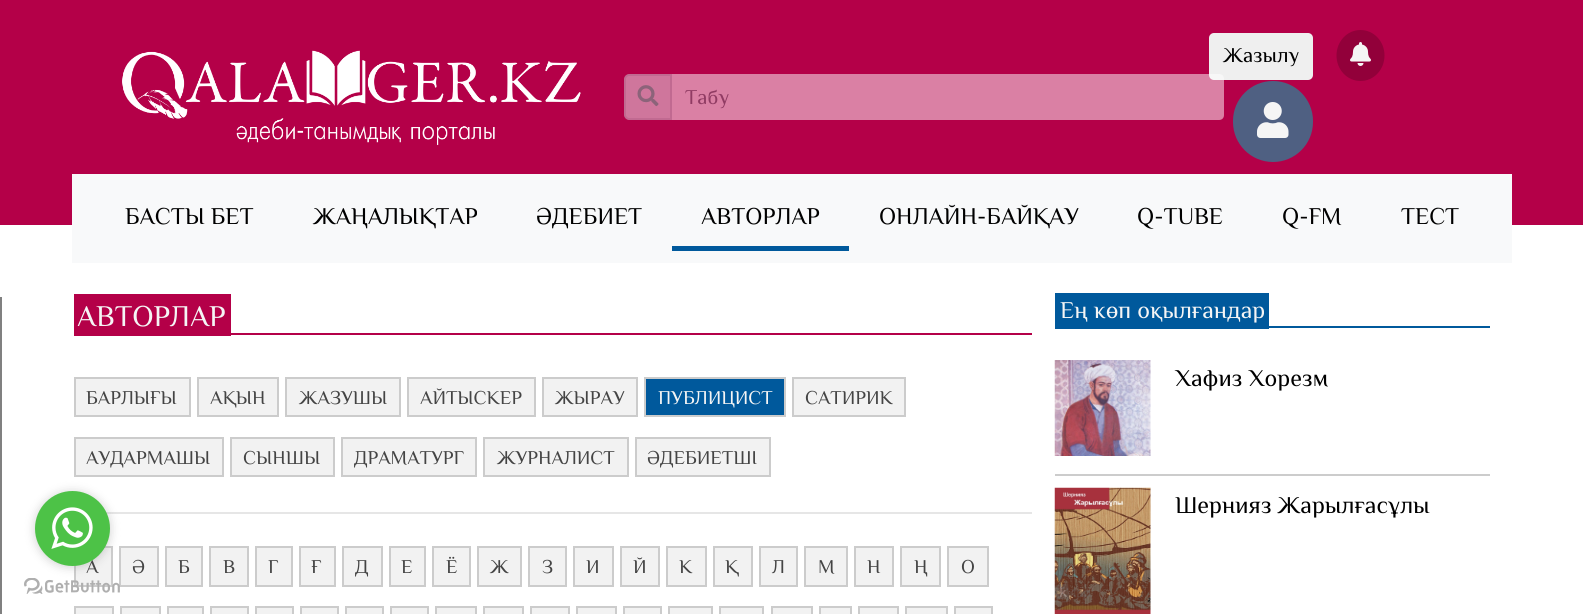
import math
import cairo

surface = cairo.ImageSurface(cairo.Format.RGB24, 1583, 614)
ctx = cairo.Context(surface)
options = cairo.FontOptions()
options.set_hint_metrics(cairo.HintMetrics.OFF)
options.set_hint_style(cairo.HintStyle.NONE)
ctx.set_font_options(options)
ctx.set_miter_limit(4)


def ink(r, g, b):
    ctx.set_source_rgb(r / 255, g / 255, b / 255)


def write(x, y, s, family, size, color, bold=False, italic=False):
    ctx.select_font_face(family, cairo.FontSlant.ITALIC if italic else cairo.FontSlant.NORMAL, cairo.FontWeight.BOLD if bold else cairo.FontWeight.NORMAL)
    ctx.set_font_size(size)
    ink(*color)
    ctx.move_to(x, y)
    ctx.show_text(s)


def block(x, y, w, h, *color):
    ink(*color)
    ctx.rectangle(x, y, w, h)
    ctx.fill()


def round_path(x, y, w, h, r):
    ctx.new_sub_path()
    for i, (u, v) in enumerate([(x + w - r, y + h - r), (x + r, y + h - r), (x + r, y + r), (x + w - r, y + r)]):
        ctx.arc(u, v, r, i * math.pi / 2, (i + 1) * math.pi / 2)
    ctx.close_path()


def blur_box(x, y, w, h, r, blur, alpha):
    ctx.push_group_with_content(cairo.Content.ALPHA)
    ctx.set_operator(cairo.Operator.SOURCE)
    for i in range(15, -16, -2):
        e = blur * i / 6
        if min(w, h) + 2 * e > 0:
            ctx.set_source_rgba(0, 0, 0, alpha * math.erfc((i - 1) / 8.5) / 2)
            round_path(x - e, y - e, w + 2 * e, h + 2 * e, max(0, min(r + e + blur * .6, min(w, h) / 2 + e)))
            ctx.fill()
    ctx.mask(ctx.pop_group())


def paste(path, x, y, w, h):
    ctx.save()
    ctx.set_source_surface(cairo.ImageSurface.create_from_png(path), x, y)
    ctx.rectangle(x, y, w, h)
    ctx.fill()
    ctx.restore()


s1 = dict(family="Philosopher", size=21, color=(0, 0, 0))
s2 = dict(family="Philosopher", size=21, color=(144, 59, 99))
s3 = dict(family="Philosopher", size=24, color=(0, 0, 0))
s4 = dict(family="Philosopher", size=19.5, color=(68, 68, 68))
s5 = dict(family="Philosopher", size=30, color=(245, 245, 245))
s6 = dict(family="Philosopher", size=19.5, color=(245, 245, 245))
s7 = dict(family="Philosopher", size=24, color=(245, 245, 245))

ink(255, 255, 255)
ctx.paint()
block(0, 0, 1583, 225, 180, 0, 72)
paste("pic1.png", 122, 50, 459, 96)
ink(239, 239, 239)
round_path(1209, 33, 104, 47, 5)
ctx.fill()
write(1223, 62, "Жазылу", **s1)
ink(146, 0, 58)
ctx.new_path()
ctx.move_to(1360.5, 30)
ctx.curve_to(1374, 30, 1384.5, 41.5, 1384.5, 55.5)
ctx.curve_to(1384.5, 69.5, 1374, 81, 1360.5, 81)
ctx.curve_to(1347, 81, 1336.5, 69.5, 1336.5, 55.5)
ctx.curve_to(1336.5, 41.5, 1347, 30, 1360.5, 30)
ctx.close_path()
ctx.fill()
paste("pic2.png", 1350, 42, 21, 24)
ink(79, 96, 130)
round_path(1233, 81, 80, 81, 40)
ctx.fill()
paste("pic3.png", 1257, 102, 32, 36)
ink(207, 118, 156)
ctx.new_path()
ctx.move_to(629, 75)
ctx.line_to(671, 75)
ctx.line_to(671, 119)
ctx.line_to(629, 119)
ctx.curve_to(627, 119, 625, 117, 625, 115)
ctx.line_to(625, 79)
ctx.curve_to(625, 77, 627, 75, 629, 75)
ctx.close_path()
ctx.fill_preserve()
ink(193, 106, 145)
ctx.stroke()
paste("pic4.png", 637, 85, 22, 22)
ctx.set_source_rgba(1, 1, 1, 0.5)
ctx.new_path()
ctx.move_to(672, 74)
ctx.line_to(1219, 74)
ctx.curve_to(1222, 74, 1224, 76, 1224, 79)
ctx.line_to(1224, 115)
ctx.curve_to(1224, 118, 1222, 120, 1219, 120)
ctx.line_to(672, 120)
ctx.close_path()
ctx.fill()
write(685, 104, "Табу", **s2)
block(72, 174, 1440, 89, 248, 249, 250)
write(125, 224, "БАСТЫ БЕТ", **s3)
write(313, 224, "ЖАҢАЛЫҚТАР", **s3)
write(536, 224, "ӘДЕБИЕТ", **s3)
block(672, 246, 177, 5, 0, 89, 156)
write(701, 224, "АВТОРЛАР", **s3)
write(879, 224, "ОНЛАЙН-БАЙҚАУ", **s3)
write(1137, 224, "Q-TUBE", **s3)
write(1282, 224, "Q-FM", **s3)
write(1401, 224, "ТЕСТ", **s3)
ink(242, 242, 242)
ctx.rectangle(75, 547, 37, 39)
ctx.fill_preserve()
ink(204, 204, 204)
ctx.stroke()
ink(242, 242, 242)
ctx.rectangle(120, 547, 38, 39)
ctx.fill_preserve()
ink(204, 204, 204)
ctx.stroke()
paste("pic6.png", 24, 578, 96, 16)
ink(242, 242, 242)
ctx.rectangle(75, 438, 148, 38)
ctx.fill_preserve()
ink(204, 204, 204)
ctx.stroke()
block(106, 512, 926, 2, 230, 230, 230)
ink(136, 136, 136)
blur_box(35, 492, 75, 75, 37.5, 5, 0.4)
write(86, 573, "А", **s4)
ink(77, 194, 71)
ctx.new_path()
ctx.arc(72.5, 528.5, 37.5, 0, 2 * math.pi)
ctx.fill()
paste("pic5.png", 51, 507, 42, 42)
block(0, 297, 2, 317, 128, 128, 128)
block(231, 333, 801, 2, 180, 0, 72)
block(74, 294, 157, 42, 180, 0, 72)
write(77, 326, "АВТОРЛАР", **s5)
ink(242, 242, 242)
ctx.rectangle(75, 378, 115, 38)
ctx.fill_preserve()
ink(204, 204, 204)
ctx.stroke()
write(86, 404, "БАРЛЫҒЫ", **s4)
ink(242, 242, 242)
ctx.rectangle(198, 378, 80, 38)
ctx.fill_preserve()
ink(204, 204, 204)
ctx.stroke()
write(210, 404, "АҚЫН", **s4)
ink(242, 242, 242)
ctx.rectangle(286, 378, 114, 38)
ctx.fill_preserve()
ink(204, 204, 204)
ctx.stroke()
write(299, 404, "ЖАЗУШЫ", **s4)
ink(242, 242, 242)
ctx.rectangle(408, 378, 127, 38)
ctx.fill_preserve()
ink(204, 204, 204)
ctx.stroke()
write(420, 404, "АЙТЫСКЕР", **s4)
ink(242, 242, 242)
ctx.rectangle(543, 378, 94, 38)
ctx.fill_preserve()
ink(204, 204, 204)
ctx.stroke()
write(555, 404, "ЖЫРАУ", **s4)
ink(0, 89, 156)
ctx.rectangle(645, 378, 140, 38)
ctx.fill_preserve()
ink(204, 204, 204)
ctx.stroke()
write(658, 404, "ПУБЛИЦИСТ", **s6)
ink(242, 242, 242)
ctx.rectangle(793, 378, 112, 38)
ctx.fill_preserve()
ink(204, 204, 204)
ctx.stroke()
write(805, 404, "САТИРИК", **s4)
write(86, 464, "АУДАРМАШЫ", **s4)
ink(242, 242, 242)
ctx.rectangle(231, 438, 103, 38)
ctx.fill_preserve()
ink(204, 204, 204)
ctx.stroke()
write(243, 464, "СЫНШЫ", **s4)
ink(242, 242, 242)
ctx.rectangle(342, 438, 134, 38)
ctx.fill_preserve()
ink(204, 204, 204)
ctx.stroke()
write(354, 464, "ДРАМАТУРГ", **s4)
ink(242, 242, 242)
ctx.rectangle(484, 438, 144, 38)
ctx.fill_preserve()
ink(204, 204, 204)
ctx.stroke()
write(497, 464, "ЖУРНАЛИСТ", **s4)
ink(242, 242, 242)
ctx.rectangle(636, 438, 134, 38)
ctx.fill_preserve()
ink(204, 204, 204)
ctx.stroke()
write(647, 464, "ӘДЕБИЕТШІ", **s4)
write(132, 573, "Ә", **s4)
ink(242, 242, 242)
ctx.rectangle(166, 547, 36, 39)
ctx.fill_preserve()
ink(204, 204, 204)
ctx.stroke()
write(178, 573, "Б", **s4)
ink(242, 242, 242)
ctx.rectangle(210, 547, 38, 39)
ctx.fill_preserve()
ink(204, 204, 204)
ctx.stroke()
write(223, 573, "В", **s4)
ink(242, 242, 242)
ctx.rectangle(256, 547, 36, 39)
ctx.fill_preserve()
ink(204, 204, 204)
ctx.stroke()
write(268, 573, "Г", **s4)
ink(242, 242, 242)
ctx.rectangle(300, 547, 35, 39)
ctx.fill_preserve()
ink(204, 204, 204)
ctx.stroke()
write(311, 573, "Ғ", **s4)
ink(242, 242, 242)
ctx.rectangle(343, 547, 39, 39)
ctx.fill_preserve()
ink(204, 204, 204)
ctx.stroke()
write(355, 573, "Д", **s4)
ink(242, 242, 242)
ctx.rectangle(390, 547, 35, 39)
ctx.fill_preserve()
ink(204, 204, 204)
ctx.stroke()
write(401, 573, "Е", **s4)
ink(242, 242, 242)
ctx.rectangle(433, 547, 37, 39)
ctx.fill_preserve()
ink(204, 204, 204)
ctx.stroke()
write(446, 573, "Ё", **s4)
ink(242, 242, 242)
ctx.rectangle(478, 547, 43, 39)
ctx.fill_preserve()
ink(204, 204, 204)
ctx.stroke()
write(490, 573, "Ж", **s4)
ink(242, 242, 242)
ctx.rectangle(529, 547, 37, 39)
ctx.fill_preserve()
ink(204, 204, 204)
ctx.stroke()
write(542, 573, "З", **s4)
ink(242, 242, 242)
ctx.rectangle(574, 547, 39, 39)
ctx.fill_preserve()
ink(204, 204, 204)
ctx.stroke()
write(586, 573, "И", **s4)
ink(242, 242, 242)
ctx.rectangle(621, 547, 38, 39)
ctx.fill_preserve()
ink(204, 204, 204)
ctx.stroke()
write(633, 573, "Й", **s4)
ink(242, 242, 242)
ctx.rectangle(667, 547, 39, 39)
ctx.fill_preserve()
ink(204, 204, 204)
ctx.stroke()
write(679, 573, "К", **s4)
ink(242, 242, 242)
ctx.rectangle(714, 547, 38, 39)
ctx.fill_preserve()
ink(204, 204, 204)
ctx.stroke()
write(725, 573, "Қ", **s4)
ink(242, 242, 242)
ctx.rectangle(760, 547, 37, 39)
ctx.fill_preserve()
ink(204, 204, 204)
ctx.stroke()
write(772, 573, "Л", **s4)
ink(242, 242, 242)
ctx.rectangle(805, 547, 42, 39)
ctx.fill_preserve()
ink(204, 204, 204)
ctx.stroke()
write(818, 573, "М", **s4)
ink(242, 242, 242)
ctx.rectangle(855, 547, 38, 39)
ctx.fill_preserve()
ink(204, 204, 204)
ctx.stroke()
write(867, 573, "Н", **s4)
ink(242, 242, 242)
ctx.rectangle(901, 547, 39, 39)
ctx.fill_preserve()
ink(204, 204, 204)
ctx.stroke()
write(914, 573, "Ң", **s4)
ink(242, 242, 242)
ctx.rectangle(948, 547, 40, 39)
ctx.fill_preserve()
ink(204, 204, 204)
ctx.stroke()
write(961, 573, "О", **s4)
ink(242, 242, 242)
ctx.rectangle(75, 607, 38, 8)
ctx.fill_preserve()
ink(204, 204, 204)
ctx.stroke()
ink(242, 242, 242)
ctx.rectangle(121, 607, 39, 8)
ctx.fill_preserve()
ink(204, 204, 204)
ctx.stroke()
ink(242, 242, 242)
ctx.rectangle(168, 607, 35, 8)
ctx.fill_preserve()
ink(204, 204, 204)
ctx.stroke()
ink(242, 242, 242)
ctx.rectangle(211, 607, 37, 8)
ctx.fill_preserve()
ink(204, 204, 204)
ctx.stroke()
ink(242, 242, 242)
ctx.rectangle(256, 607, 37, 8)
ctx.fill_preserve()
ink(204, 204, 204)
ctx.stroke()
ink(242, 242, 242)
ctx.rectangle(301, 607, 37, 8)
ctx.fill_preserve()
ink(204, 204, 204)
ctx.stroke()
ink(242, 242, 242)
ctx.rectangle(346, 607, 37, 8)
ctx.fill_preserve()
ink(204, 204, 204)
ctx.stroke()
ink(242, 242, 242)
ctx.rectangle(391, 607, 37, 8)
ctx.fill_preserve()
ink(204, 204, 204)
ctx.stroke()
ink(242, 242, 242)
ctx.rectangle(436, 607, 40, 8)
ctx.fill_preserve()
ink(204, 204, 204)
ctx.stroke()
ink(242, 242, 242)
ctx.rectangle(484, 607, 39, 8)
ctx.fill_preserve()
ink(204, 204, 204)
ctx.stroke()
ink(242, 242, 242)
ctx.rectangle(531, 607, 38, 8)
ctx.fill_preserve()
ink(204, 204, 204)
ctx.stroke()
ink(242, 242, 242)
ctx.rectangle(577, 607, 39, 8)
ctx.fill_preserve()
ink(204, 204, 204)
ctx.stroke()
ink(242, 242, 242)
ctx.rectangle(624, 607, 37, 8)
ctx.fill_preserve()
ink(204, 204, 204)
ctx.stroke()
ink(242, 242, 242)
ctx.rectangle(669, 607, 43, 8)
ctx.fill_preserve()
ink(204, 204, 204)
ctx.stroke()
ink(242, 242, 242)
ctx.rectangle(720, 607, 43, 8)
ctx.fill_preserve()
ink(204, 204, 204)
ctx.stroke()
ink(242, 242, 242)
ctx.rectangle(772, 607, 40, 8)
ctx.fill_preserve()
ink(204, 204, 204)
ctx.stroke()
ink(242, 242, 242)
ctx.rectangle(820, 607, 31, 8)
ctx.fill_preserve()
ink(204, 204, 204)
ctx.stroke()
ink(242, 242, 242)
ctx.rectangle(859, 607, 39, 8)
ctx.fill_preserve()
ink(204, 204, 204)
ctx.stroke()
ink(242, 242, 242)
ctx.rectangle(906, 607, 41, 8)
ctx.fill_preserve()
ink(204, 204, 204)
ctx.stroke()
ink(242, 242, 242)
ctx.rectangle(955, 607, 37, 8)
ctx.fill_preserve()
ink(204, 204, 204)
ctx.stroke()
block(1269, 326, 221, 2, 0, 89, 156)
block(1055, 293, 214, 36, 0, 89, 156)
write(1060, 318, "Ең көп оқылғандар", **s7)
block(1055, 474, 435, 2, 204, 204, 204)
paste("pic7.png", 1054, 360, 97, 96)
write(1175, 386, "Хафиз Хорезм", **s3)
paste("pic8.png", 1054, 487, 97, 127)
write(1175, 513, "Шернияз Жарылғасұлы", **s3)
surface.write_to_png("screenshot.png")
